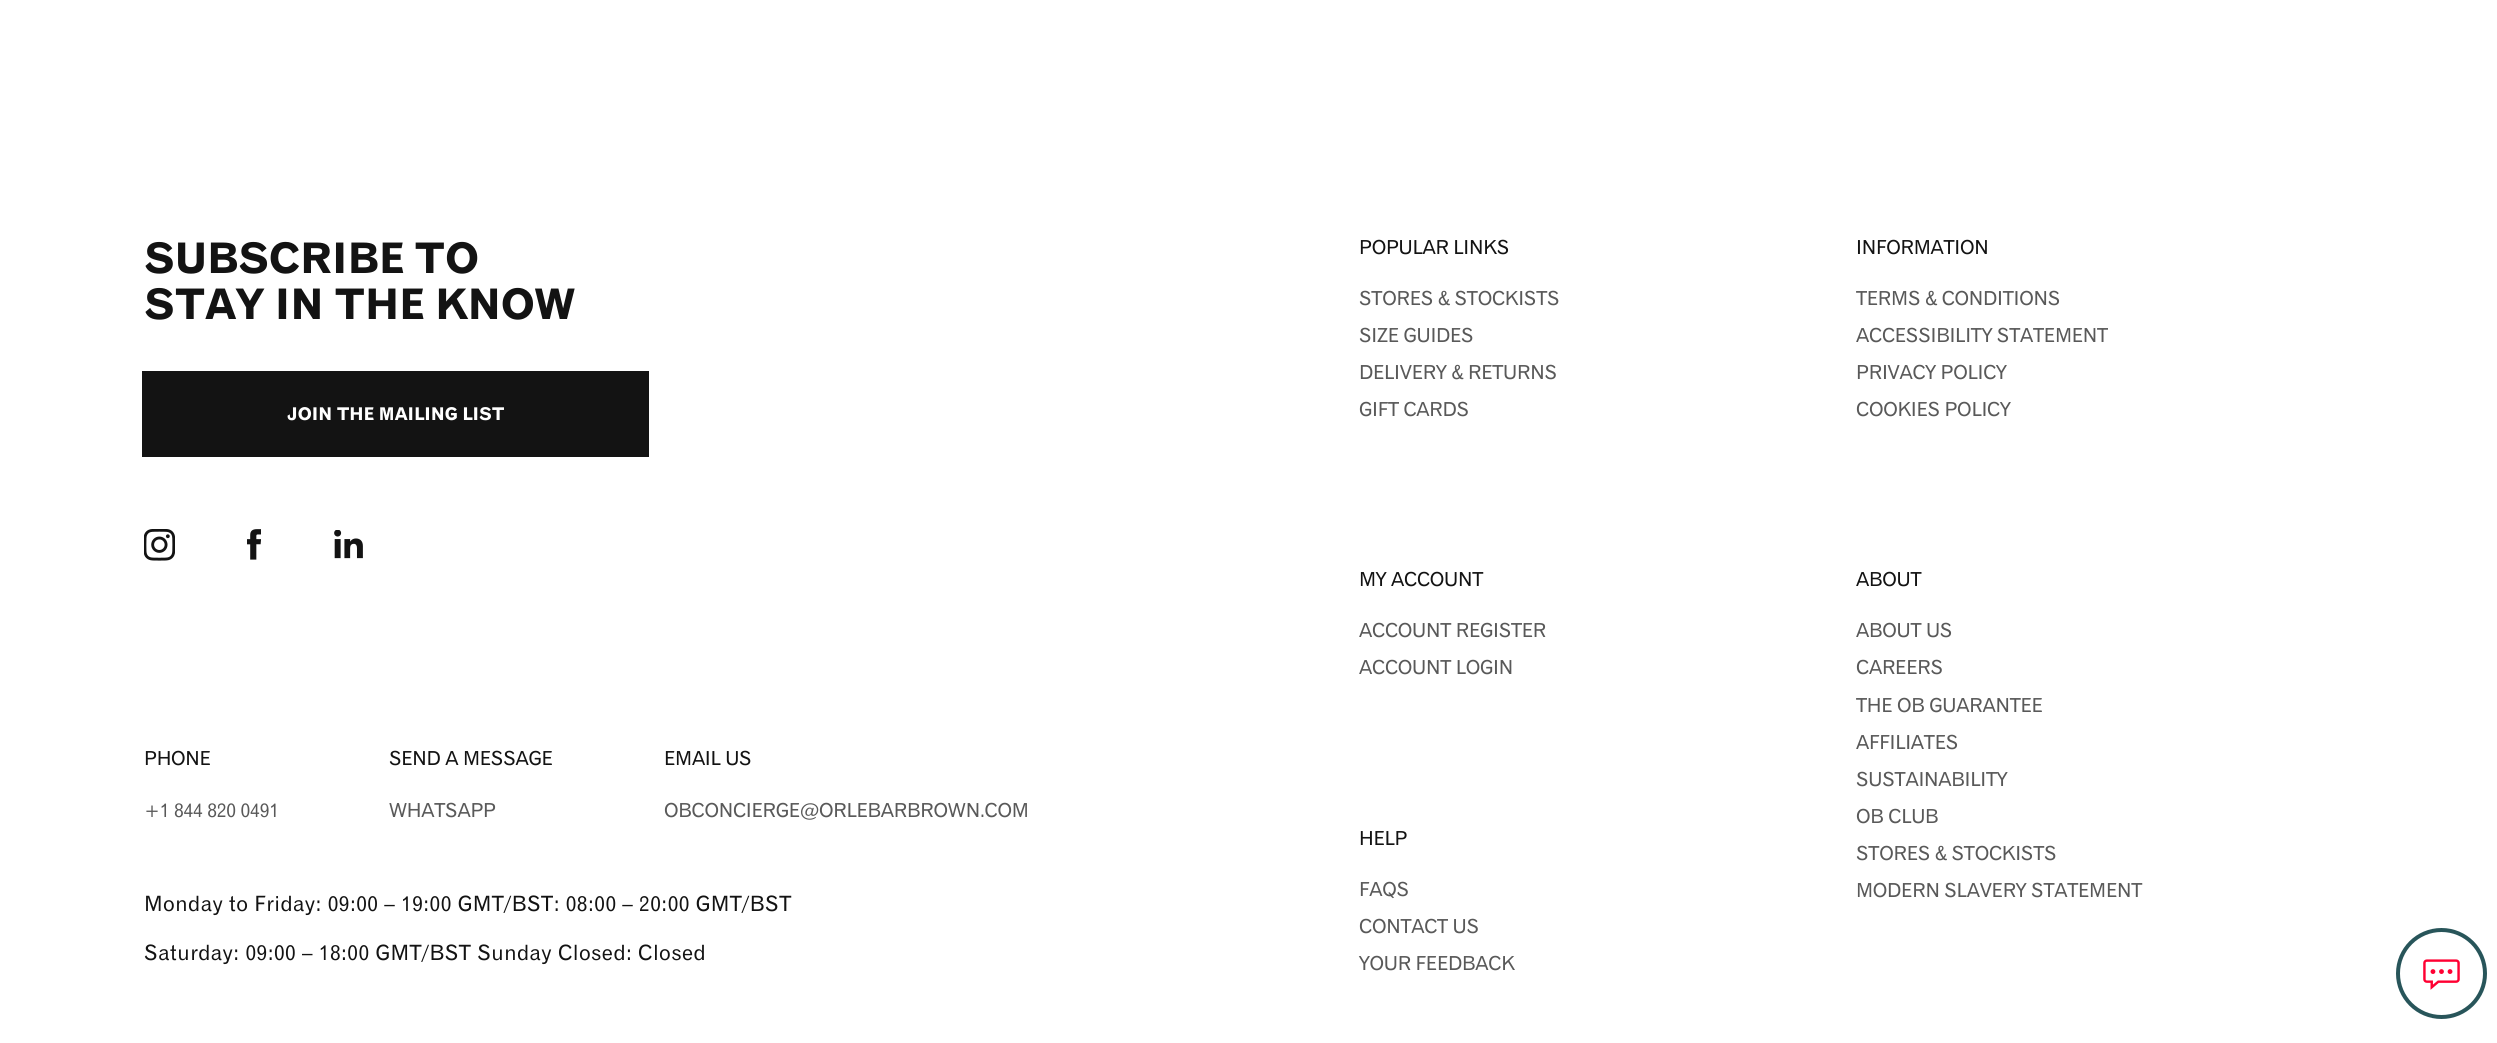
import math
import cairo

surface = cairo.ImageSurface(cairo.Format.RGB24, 2497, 1043)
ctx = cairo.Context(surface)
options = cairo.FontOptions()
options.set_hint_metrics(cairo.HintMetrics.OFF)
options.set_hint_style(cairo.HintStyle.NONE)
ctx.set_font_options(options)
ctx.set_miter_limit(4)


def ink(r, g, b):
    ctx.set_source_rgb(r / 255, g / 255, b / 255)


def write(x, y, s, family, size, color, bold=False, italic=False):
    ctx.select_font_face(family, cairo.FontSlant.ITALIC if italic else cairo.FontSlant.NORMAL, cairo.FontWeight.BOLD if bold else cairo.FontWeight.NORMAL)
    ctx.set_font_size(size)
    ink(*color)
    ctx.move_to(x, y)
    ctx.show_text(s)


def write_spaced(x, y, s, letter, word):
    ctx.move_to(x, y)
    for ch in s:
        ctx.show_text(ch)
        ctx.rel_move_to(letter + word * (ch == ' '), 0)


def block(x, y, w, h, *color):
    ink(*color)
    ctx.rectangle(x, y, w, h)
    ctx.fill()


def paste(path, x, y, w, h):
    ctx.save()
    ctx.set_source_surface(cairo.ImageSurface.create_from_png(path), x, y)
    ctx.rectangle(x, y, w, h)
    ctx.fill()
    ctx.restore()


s1 = dict(family="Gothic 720", size=42, color=(19, 19, 19), bold=True)
s2 = dict(family="Gothic 720", size=17.5, color=(255, 255, 255), bold=True)

ink(255, 255, 255)
ctx.paint()
write(144, 273, "SUBSCRIBE TO", **s1)
write(144, 319, "STAY IN THE KNOW", **s1)
block(142, 371, 507, 86, 19, 19, 19)
write(287, 420, "JOIN THE MAILING LIST", **s2)
paste("pic1.png", 144, 529, 31, 32)
paste("pic2.png", 247, 529, 14, 31)
paste("pic3.png", 334, 530, 29, 29)
ctx.select_font_face("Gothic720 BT")
ctx.set_font_size(19.25)
ink(19, 19, 19)
write_spaced(144, 765, "PHONE", -0.25, 0)
ink(89, 89, 89)
write_spaced(144, 817, "+1 844 820 0491", -0.25, 0)
ink(19, 19, 19)
write_spaced(389, 765, "SEND A MESSAGE", -0.25, 0)
ink(89, 89, 89)
write_spaced(389, 817, "WHATSAPP", -0.25, 0)
ink(19, 19, 19)
write_spaced(664, 765, "EMAIL US", -0.25, 0)
ink(89, 89, 89)
write_spaced(664, 817, "OBCONCIERGE@ORLEBARBROWN.COM", -0.25, 0)
ctx.set_font_size(21)
ink(19, 19, 19)
write_spaced(144, 911, "Monday to Friday: 09:00 – 19:00 GMT/BST: 08:00 – 20:00 GMT/BST", 0.45, 0)
write_spaced(144, 960, "Saturday: 09:00 – 18:00 GMT/BST Sunday Closed: Closed", 0.45, 0)
ctx.set_font_size(19.25)
write_spaced(1359, 254, "POPULAR LINKS", -0.25, 0)
ink(89, 89, 89)
write_spaced(1359, 305, "STORES & STOCKISTS", -0.25, 0)
write_spaced(1359, 342, "SIZE GUIDES", -0.25, 0)
write_spaced(1359, 379, "DELIVERY & RETURNS", -0.25, 0)
write_spaced(1359, 416, "GIFT CARDS", -0.25, 0)
ink(19, 19, 19)
write_spaced(1856, 254, "INFORMATION", -0.25, 0)
ink(89, 89, 89)
write_spaced(1856, 305, "TERMS & CONDITIONS", -0.25, 0)
write_spaced(1856, 342, "ACCESSIBILITY STATEMENT", -0.25, 0)
write_spaced(1856, 379, "PRIVACY POLICY", -0.25, 0)
write_spaced(1856, 416, "COOKIES POLICY", -0.25, 0)
ink(19, 19, 19)
write_spaced(1359, 586, "MY ACCOUNT", -0.25, 0)
ink(89, 89, 89)
write_spaced(1359, 637, "ACCOUNT REGISTER", -0.25, 0)
write_spaced(1359, 674, "ACCOUNT LOGIN", -0.25, 0)
ink(19, 19, 19)
write_spaced(1856, 586, "ABOUT", -0.25, 0)
ink(89, 89, 89)
write_spaced(1856, 637, "ABOUT US", -0.25, 0)
write_spaced(1856, 674, "CAREERS", -0.25, 0)
write_spaced(1856, 712, "THE OB GUARANTEE", -0.25, 0)
write_spaced(1856, 749, "AFFILIATES", -0.25, 0)
write_spaced(1856, 786, "SUSTAINABILITY", -0.25, 0)
write_spaced(1856, 823, "OB CLUB", -0.25, 0)
write_spaced(1856, 860, "STORES & STOCKISTS", -0.25, 0)
write_spaced(1856, 897, "MODERN SLAVERY STATEMENT", -0.25, 0)
ink(19, 19, 19)
write_spaced(1359, 845, "HELP", -0.25, 0)
ink(89, 89, 89)
write_spaced(1359, 896, "FAQS", -0.25, 0)
write_spaced(1359, 933, "CONTACT US", -0.25, 0)
write_spaced(1359, 970, "YOUR FEEDBACK", -0.25, 0)
ctx.new_path()
ctx.arc(2441.5, 973.5, 43.5, 0, 2 * math.pi)
ink(40, 85, 90)
ctx.set_line_width(4)
ctx.stroke()
paste("pic4.png", 2423, 959, 37, 31)
surface.write_to_png("screenshot.png")
